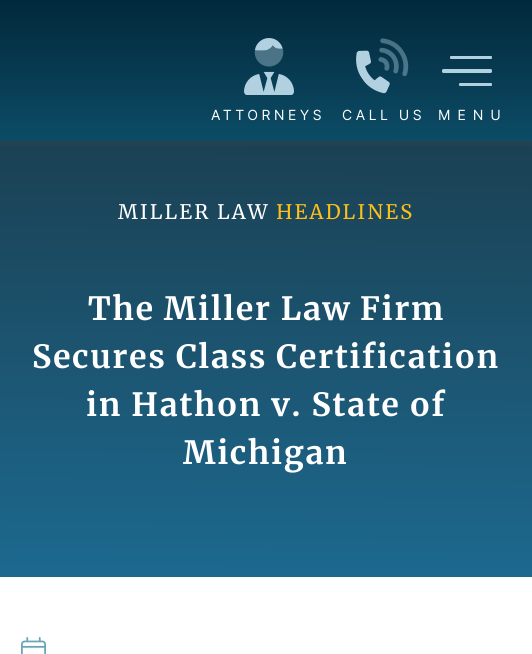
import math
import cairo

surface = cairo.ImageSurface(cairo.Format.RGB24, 532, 654)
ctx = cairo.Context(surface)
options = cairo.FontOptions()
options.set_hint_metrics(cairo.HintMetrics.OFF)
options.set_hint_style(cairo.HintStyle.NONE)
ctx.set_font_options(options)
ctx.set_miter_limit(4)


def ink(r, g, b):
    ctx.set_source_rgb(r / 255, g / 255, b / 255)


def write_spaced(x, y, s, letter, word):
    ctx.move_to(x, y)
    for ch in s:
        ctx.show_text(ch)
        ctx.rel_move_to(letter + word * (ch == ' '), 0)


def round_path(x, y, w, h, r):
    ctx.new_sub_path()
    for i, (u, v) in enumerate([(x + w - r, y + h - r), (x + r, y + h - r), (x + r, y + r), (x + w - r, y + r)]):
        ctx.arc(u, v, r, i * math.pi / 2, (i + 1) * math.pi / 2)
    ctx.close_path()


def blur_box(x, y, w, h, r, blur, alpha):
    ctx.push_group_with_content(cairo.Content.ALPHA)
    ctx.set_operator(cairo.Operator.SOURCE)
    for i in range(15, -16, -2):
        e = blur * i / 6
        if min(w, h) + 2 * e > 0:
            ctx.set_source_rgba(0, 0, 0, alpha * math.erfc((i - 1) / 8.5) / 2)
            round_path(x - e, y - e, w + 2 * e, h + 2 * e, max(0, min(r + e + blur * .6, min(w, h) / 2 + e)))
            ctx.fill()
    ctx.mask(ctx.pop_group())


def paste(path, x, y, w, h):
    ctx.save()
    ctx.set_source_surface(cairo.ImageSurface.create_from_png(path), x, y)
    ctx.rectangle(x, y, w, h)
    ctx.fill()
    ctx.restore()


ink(255, 255, 255)
ctx.paint()
gradient = cairo.LinearGradient(268, -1.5, 264, 578)
gradient.add_color_stop_rgba(0.2, 0.106, 0.243, 0.31, 1)
gradient.add_color_stop_rgba(1, 0.11, 0.412, 0.561, 1)
ctx.set_source(gradient)
ctx.rectangle(0, 141, 532, 436)
ctx.fill()
ink(73, 73, 73)
blur_box(0, 4, 532, 141, 0, 2, 0.25)
gradient = cairo.LinearGradient(266, 0, 266, 141)
gradient.add_color_stop_rgba(0, 0.008, 0.157, 0.231, 1)
gradient.add_color_stop_rgba(1, 0.047, 0.298, 0.4, 1)
ctx.set_source(gradient)
ctx.rectangle(0, 0, 532, 141)
ctx.fill()
paste("pic1.png", 211, 38, 110, 83)
paste("pic2.png", 342, 38, 79, 83)
paste("pic3.png", 439, 56, 61, 65)
ctx.select_font_face("Merriweather")
ctx.set_font_size(20)
ink(255, 255, 255)
write_spaced(118, 219, "MILLER LAW", 2, 0)
ink(255, 191, 25)
write_spaced(276, 219, "HEADLINES", 2, 0)
ctx.select_font_face("Merriweather", cairo.FontSlant.NORMAL, cairo.FontWeight.BOLD)
ctx.set_font_size(32)
ink(255, 255, 255)
write_spaced(88, 320, "The Miller Law Firm", 1.6, 0)
write_spaced(32, 368, "Secures Class Certification", 1.6, 0)
write_spaced(86, 416, "in Hathon v. State of", 1.6, 0)
write_spaced(183, 464, "Michigan", 1.6, 0)
paste("pic4.png", 21, 637, 25, 17)
surface.write_to_png("screenshot.png")
